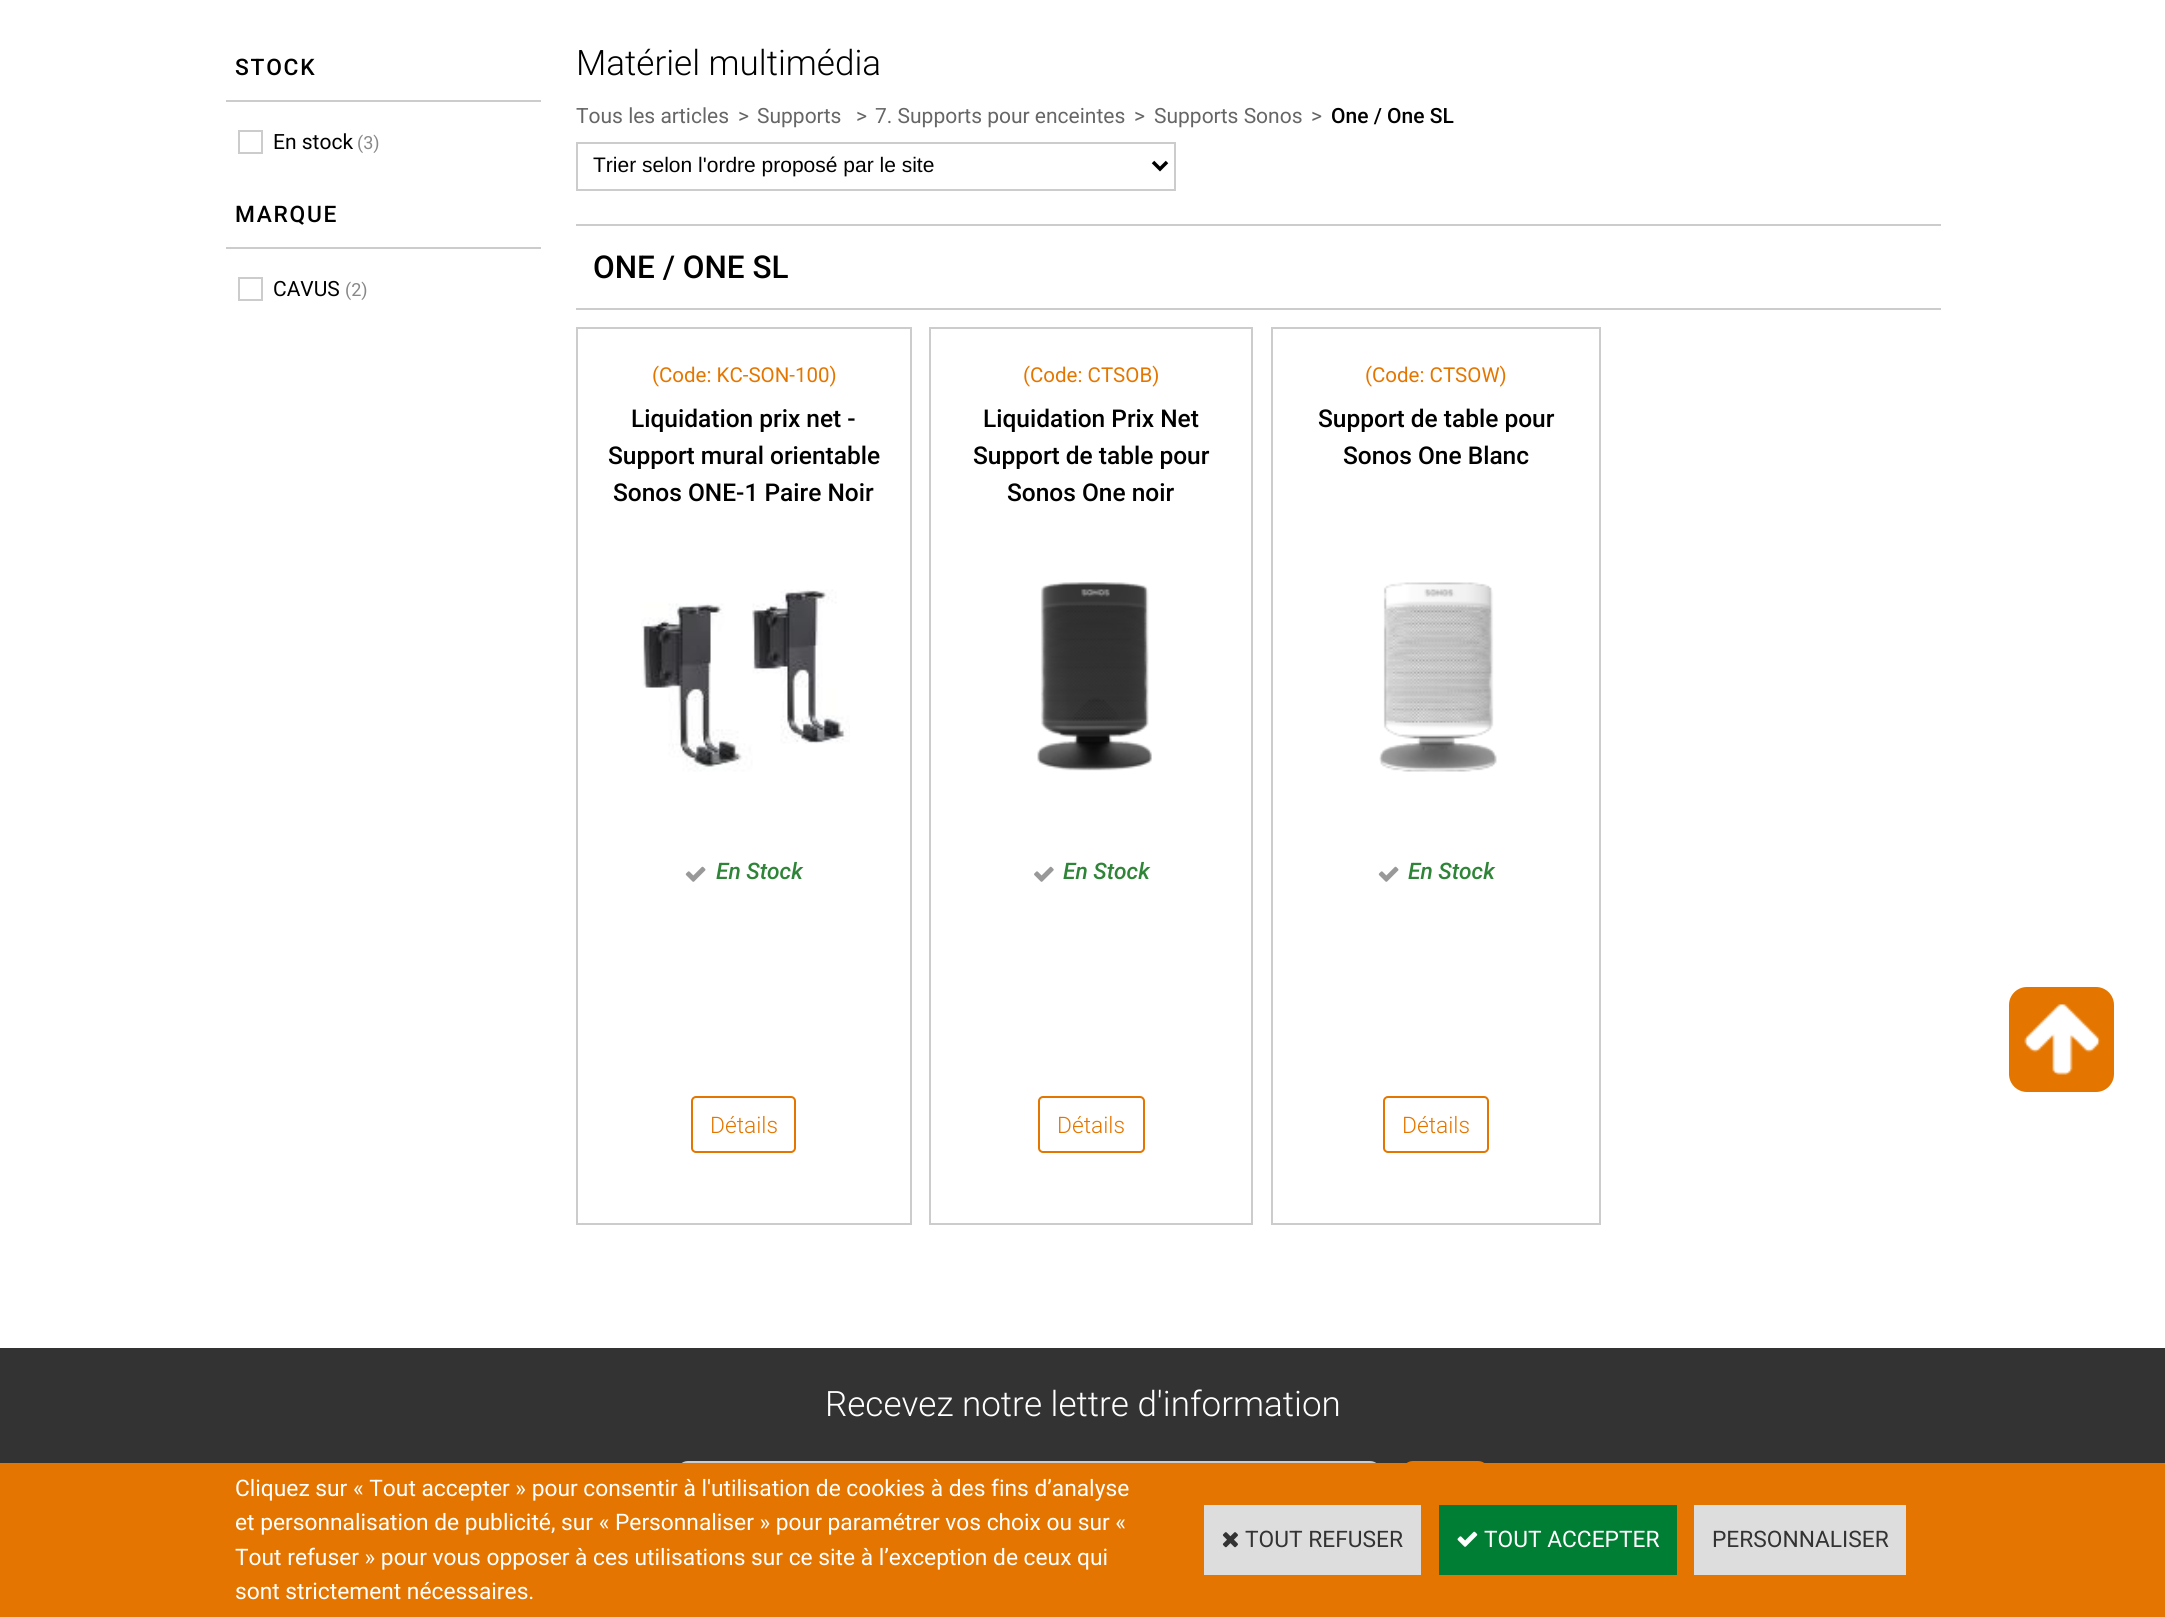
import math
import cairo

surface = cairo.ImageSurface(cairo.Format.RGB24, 2165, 1617)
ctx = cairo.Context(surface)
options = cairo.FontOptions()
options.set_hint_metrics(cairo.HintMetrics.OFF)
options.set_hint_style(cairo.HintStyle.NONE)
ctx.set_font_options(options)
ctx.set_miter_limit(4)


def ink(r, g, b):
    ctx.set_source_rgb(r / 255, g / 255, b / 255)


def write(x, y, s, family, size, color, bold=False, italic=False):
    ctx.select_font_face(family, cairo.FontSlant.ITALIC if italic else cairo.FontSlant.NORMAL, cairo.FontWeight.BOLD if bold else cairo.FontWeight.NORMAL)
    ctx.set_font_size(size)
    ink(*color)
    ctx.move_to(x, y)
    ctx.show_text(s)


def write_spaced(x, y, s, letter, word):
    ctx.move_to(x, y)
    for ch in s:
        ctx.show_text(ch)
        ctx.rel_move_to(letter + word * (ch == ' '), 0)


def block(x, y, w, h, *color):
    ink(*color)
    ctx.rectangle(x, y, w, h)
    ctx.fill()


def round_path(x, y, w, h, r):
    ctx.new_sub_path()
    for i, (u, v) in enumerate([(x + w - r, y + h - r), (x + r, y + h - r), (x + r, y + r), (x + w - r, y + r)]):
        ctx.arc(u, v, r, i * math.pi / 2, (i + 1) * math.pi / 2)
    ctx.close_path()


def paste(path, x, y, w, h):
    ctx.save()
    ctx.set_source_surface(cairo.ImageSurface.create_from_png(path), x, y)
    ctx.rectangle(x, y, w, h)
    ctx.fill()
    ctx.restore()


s1 = dict(family="Roboto", size=21, color=(0, 0, 0))
s2 = dict(family="Roboto", size=18, color=(136, 136, 136))
s3 = dict(family="Roboto Light", size=35, color=(0, 0, 0))
s4 = dict(family="Roboto", size=21, color=(102, 102, 102))
s5 = dict(family="Roboto Medium", size=21, color=(0, 0, 0))
s6 = dict(family="Liberation Sans", size=21, color=(0, 0, 0))
s7 = dict(family="Roboto Medium", size=31.5, color=(0, 0, 0))
s8 = dict(family="Roboto", size=20.5, color=(228, 118, 0))
s9 = dict(family="Roboto Medium", size=24.5, color=(0, 0, 0))
s10 = dict(family="Roboto Medium", size=22.75, color=(47, 133, 55), italic=True)
s11 = dict(family="Roboto Light", size=22.75, color=(228, 118, 0))
s12 = dict(family="Roboto Light", size=35, color=(255, 255, 255))
s13 = dict(family="Roboto", size=22.75, color=(255, 255, 255))
s14 = dict(family="Roboto", size=22.75, color=(51, 51, 51))

ink(255, 255, 255)
ctx.paint()
block(226, 100, 315, 2, 204, 204, 204)
ctx.select_font_face("Roboto Medium")
ctx.set_font_size(22.75)
ink(0, 0, 0)
write_spaced(235, 75, "STOCK", 1.75, 0)
ctx.rectangle(239, 131, 23, 22)
ink(204, 204, 204)
ctx.stroke()
write(273, 149, "En stock", **s1)
write(357, 149, "(3)", **s2)
block(226, 247, 315, 2, 204, 204, 204)
ctx.select_font_face("Roboto Medium")
ctx.set_font_size(22.75)
ink(0, 0, 0)
write_spaced(235, 222, "MARQUE", 1.75, 0)
ctx.rectangle(239, 278, 23, 22)
ink(204, 204, 204)
ctx.stroke()
write(273, 296, "CAVUS", **s1)
write(345, 296, "(2)", **s2)
write(576, 75, "Matériel multimédia", **s3)
write(576, 123, "Tous les articles", **s4)
write(738, 123, ">", **s4)
write(757, 123, "Supports", **s4)
write(856, 123, ">", **s4)
write(875, 123, "7. Supports pour enceintes", **s4)
write(1134, 123, ">", **s4)
write(1154, 123, "Supports Sonos", **s4)
write(1311, 123, ">", **s4)
write(1331, 123, "One / One SL", **s5)
ctx.rectangle(577, 143, 598, 47)
ink(204, 204, 204)
ctx.stroke()
ctx.new_path()
ctx.move_to(1153, 162)
ctx.line_to(1160, 169)
ctx.line_to(1167, 162)
ink(0, 0, 0)
ctx.set_line_width(3.5)
ctx.stroke()
write(593, 172, "Trier selon l'ordre proposé par le site", **s6)
block(576, 224, 1365, 2, 204, 204, 204)
block(576, 308, 1365, 2, 204, 204, 204)
write(593, 278, "ONE / ONE SL", **s7)
ctx.rectangle(577, 328, 334, 896)
ink(204, 204, 204)
ctx.set_line_width(2)
ctx.stroke()
write(652, 382, "(Code: KC-SON-100)", **s8)
write(631, 427, "Liquidation prix net -", **s9)
write(608, 464, "Support mural orientable", **s9)
write(613, 501, "Sonos ONE-1 Paire Noir", **s9)
paste("pic1.png", 641, 589, 209, 183)
paste("pic2.png", 685, 866, 21, 16)
write(716, 879, "En Stock", **s10)
round_path(692, 1097, 103, 55, 4)
ink(228, 118, 0)
ctx.stroke()
write(710, 1133, "Détails", **s11)
ctx.rectangle(930, 328, 322, 896)
ink(204, 204, 204)
ctx.stroke()
write(1023, 382, "(Code: CTSOB)", **s8)
write(983, 427, "Liquidation Prix Net", **s9)
write(973, 464, "Support de table pour", **s9)
write(1007, 501, "Sonos One noir", **s9)
paste("pic3.png", 1037, 582, 115, 189)
paste("pic4.png", 1034, 866, 20, 16)
write(1063, 879, "En Stock", **s10)
round_path(1039, 1097, 105, 55, 4)
ink(228, 118, 0)
ctx.stroke()
write(1057, 1133, "Détails", **s11)
ctx.rectangle(1272, 328, 328, 896)
ink(204, 204, 204)
ctx.stroke()
write(1365, 382, "(Code: CTSOW)", **s8)
write(1318, 427, "Support de table pour", **s9)
write(1343, 464, "Sonos One Blanc", **s9)
paste("pic5.png", 1379, 582, 118, 190)
paste("pic2.png", 1378, 866, 21, 16)
write(1408, 879, "En Stock", **s10)
round_path(1384, 1097, 104, 55, 4)
ink(228, 118, 0)
ctx.stroke()
write(1402, 1133, "Détails", **s11)
round_path(2009, 987, 105, 105, 18)
ctx.fill()
paste("pic6.png", 2024, 1004, 77, 71)
block(0, 1348, 2165, 115, 51, 51, 51)
write(825, 1416, "Recevez notre lettre d'information", **s12)
round_path(678, 1462, 702, 68, 10)
ink(204, 204, 204)
ctx.stroke()
ink(228, 118, 0)
round_path(1402, 1461, 87, 70, 11)
ctx.fill()
block(0, 1463, 2165, 154, 228, 117, 0)
write(235, 1496, "Cliquez sur « Tout accepter » pour consentir à l'utilisation de cookies à des fins d’analyse", **s13)
write(235, 1530, "et personnalisation de publicité, sur « Personnaliser » pour paramétrer vos choix ou sur «", **s13)
write(235, 1565, "Tout refuser » pour vous opposer à ces utilisations sur ce site à l’exception de ceux qui", **s13)
write(235, 1599, "sont strictement nécessaires.", **s13)
block(1204, 1505, 217, 70, 221, 221, 221)
paste("pic7.png", 1222, 1532, 16, 16)
write(1245, 1547, "TOUT REFUSER", **s14)
block(1439, 1505, 238, 70, 0, 126, 51)
paste("pic8.png", 1457, 1531, 21, 16)
write(1484, 1547, "TOUT ACCEPTER", **s13)
block(1694, 1505, 212, 70, 221, 221, 221)
write(1712, 1547, "PERSONNALISER", **s14)
surface.write_to_png("screenshot.png")
